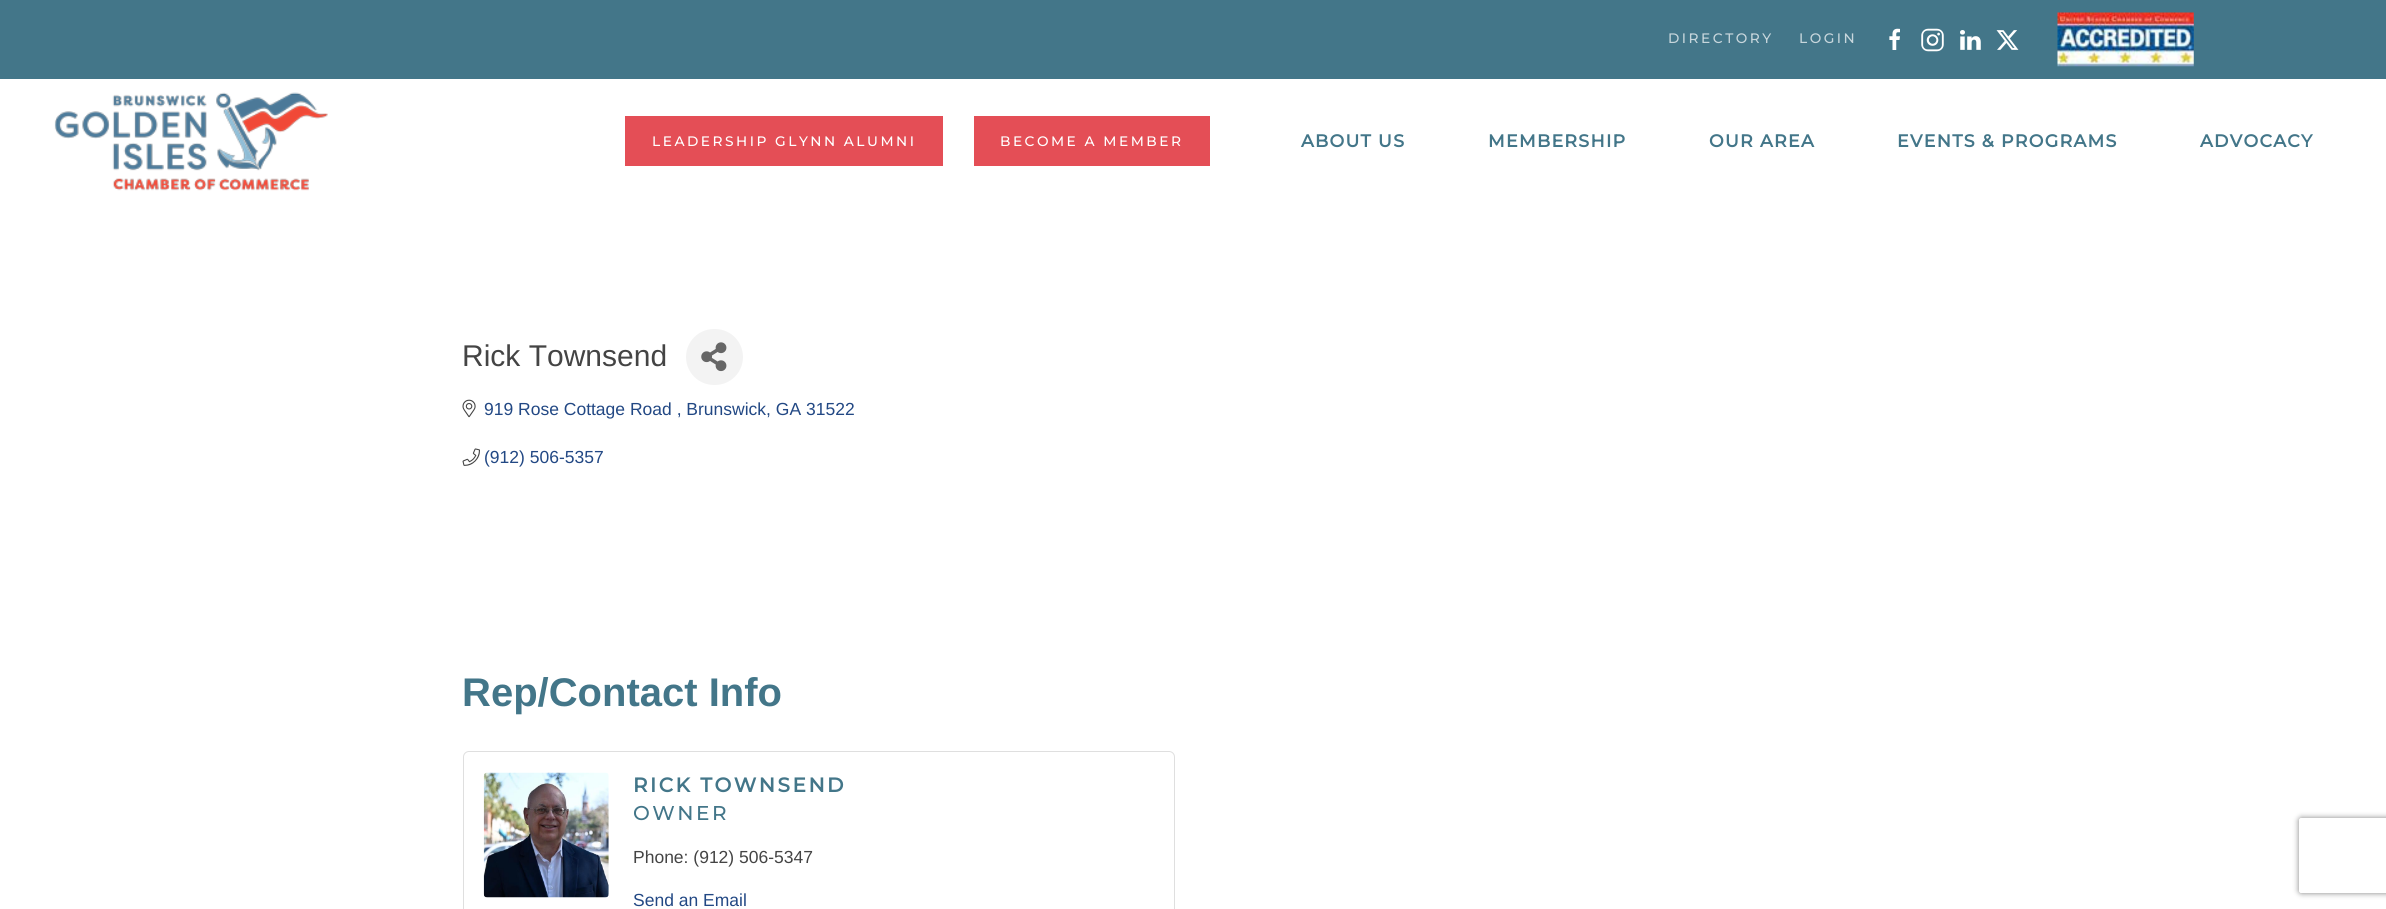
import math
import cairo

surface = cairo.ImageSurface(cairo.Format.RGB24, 2386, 909)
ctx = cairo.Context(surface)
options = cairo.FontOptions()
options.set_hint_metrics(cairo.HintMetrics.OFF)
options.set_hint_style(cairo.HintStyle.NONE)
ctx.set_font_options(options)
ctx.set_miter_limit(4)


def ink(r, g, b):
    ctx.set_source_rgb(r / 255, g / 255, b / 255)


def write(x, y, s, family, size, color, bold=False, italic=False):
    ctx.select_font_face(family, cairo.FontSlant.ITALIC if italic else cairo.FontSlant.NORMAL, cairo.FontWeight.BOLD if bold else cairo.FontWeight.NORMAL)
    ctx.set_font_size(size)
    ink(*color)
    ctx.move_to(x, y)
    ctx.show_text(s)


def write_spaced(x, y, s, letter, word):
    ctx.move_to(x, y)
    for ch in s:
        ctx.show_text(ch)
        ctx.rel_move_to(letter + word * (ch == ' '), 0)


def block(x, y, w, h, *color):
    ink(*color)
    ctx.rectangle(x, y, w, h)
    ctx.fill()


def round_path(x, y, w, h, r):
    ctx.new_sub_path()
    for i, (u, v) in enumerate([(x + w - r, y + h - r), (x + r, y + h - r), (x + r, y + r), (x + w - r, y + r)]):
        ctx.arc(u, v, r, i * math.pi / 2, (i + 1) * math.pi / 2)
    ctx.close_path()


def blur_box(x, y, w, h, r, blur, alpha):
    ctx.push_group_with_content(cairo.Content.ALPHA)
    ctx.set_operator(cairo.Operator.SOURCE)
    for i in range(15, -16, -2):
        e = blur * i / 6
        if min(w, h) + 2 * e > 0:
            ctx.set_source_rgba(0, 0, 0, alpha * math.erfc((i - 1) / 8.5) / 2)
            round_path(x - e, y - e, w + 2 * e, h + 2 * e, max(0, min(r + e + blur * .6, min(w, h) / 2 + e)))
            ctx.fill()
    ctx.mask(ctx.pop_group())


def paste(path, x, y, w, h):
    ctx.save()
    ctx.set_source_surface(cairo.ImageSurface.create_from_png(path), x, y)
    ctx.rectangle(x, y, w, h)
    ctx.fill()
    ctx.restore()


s1 = dict(family="Liberation Sans", size=30, color=(68, 68, 68))
s2 = dict(family="Liberation Sans", size=17.5, color=(34, 72, 132))
s3 = dict(family="Liberation Sans", size=40, color=(67, 118, 137), bold=True)
s4 = dict(family="Liberation Sans", size=17.5, color=(68, 68, 68))

ink(255, 255, 255)
ctx.paint()
block(0, 0, 2386, 79, 67, 118, 137)
ctx.select_font_face("Montserrat Thin")
ctx.set_font_size(13.75)
ink(199, 214, 220)
write_spaced(1668, 43, "DIRECTORY", 2.5, 0)
write_spaced(1799, 43, "LOGIN", 2.5, 0)
paste("pic1.png", 1889, 28, 11, 22)
paste("pic2.png", 1921, 28, 23, 24)
paste("pic3.png", 1960, 30, 21, 20)
paste("pic4.png", 1996, 30, 23, 20)
paste("pic5.png", 2057, 12, 137, 55)
paste("pic6.png", 54, 92, 274, 99)
block(625, 116, 318, 50, 228, 78, 86)
ink(255, 255, 255)
write_spaced(652, 146, "LEADERSHIP GLYNN ALUMNI", 2.5, 0)
block(974, 116, 236, 50, 228, 78, 86)
ink(255, 255, 255)
write_spaced(1000, 146, "BECOME A MEMBER", 2.5, 0)
ctx.select_font_face("Montserrat", cairo.FontSlant.NORMAL, cairo.FontWeight.BOLD)
ctx.set_font_size(17.5)
ink(67, 118, 137)
write_spaced(1301, 147, "ABOUT US", 1.25, 0)
write_spaced(1488, 147, "MEMBERSHIP", 1.25, 0)
write_spaced(1709, 147, "OUR AREA", 1.25, 0)
write_spaced(1897, 147, "EVENTS & PROGRAMS", 1.25, 0)
write_spaced(2200, 147, "ADVOCACY", 1.25, 0)
write(462, 366, "Rick Townsend", **s1)
ink(243, 243, 243)
round_path(686, 329, 57, 56, 28)
ctx.fill()
paste("pic7.png", 701, 342, 26, 30)
paste("pic8.png", 462, 399, 14, 19)
write(484, 415, "919 Rose Cottage Road , Brunswick, GA 31522", **s2)
paste("pic9.png", 462, 448, 18, 18)
write(484, 463, "(912) 506-5357", **s2)
write(462, 706, "Rep/Contact Info", **s3)
round_path(463.5, 751.5, 711, 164, 5.5)
ink(223, 223, 223)
ctx.set_line_width(1)
ctx.stroke()
paste("pic10.png", 483, 772, 126, 126)
ctx.select_font_face("Montserrat", cairo.FontSlant.NORMAL, cairo.FontWeight.BOLD)
ctx.set_font_size(20)
ink(67, 118, 137)
write_spaced(633, 792, "RICK TOWNSEND", 2.5, 0)
ctx.select_font_face("Montserrat Thin")
write_spaced(633, 820, "OWNER", 2.5, 0)
write(633, 863, "Phone: (912) 506-5347", **s4)
write(633, 906, "Send an Email", **s2)
ctx.save()
ctx.set_fill_rule(cairo.FillRule.EVEN_ODD)
ctx.new_path()
ctx.move_to(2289, 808)
ctx.line_to(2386, 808)
ctx.line_to(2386, 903)
ctx.line_to(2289, 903)
ctx.close_path()
ctx.move_to(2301.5, 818)
ctx.line_to(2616.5, 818)
ctx.curve_to(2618, 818, 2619, 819, 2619, 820.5)
ctx.line_to(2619, 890.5)
ctx.curve_to(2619, 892, 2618, 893, 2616.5, 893)
ctx.line_to(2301.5, 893)
ctx.curve_to(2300, 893, 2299, 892, 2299, 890.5)
ctx.line_to(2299, 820.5)
ctx.curve_to(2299, 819, 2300, 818, 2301.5, 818)
ctx.close_path()
ctx.clip()
ink(128, 128, 128)
blur_box(2299, 818, 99, 75, 2.5, 3, 1)
ctx.restore()
surface.write_to_png("screenshot.png")
